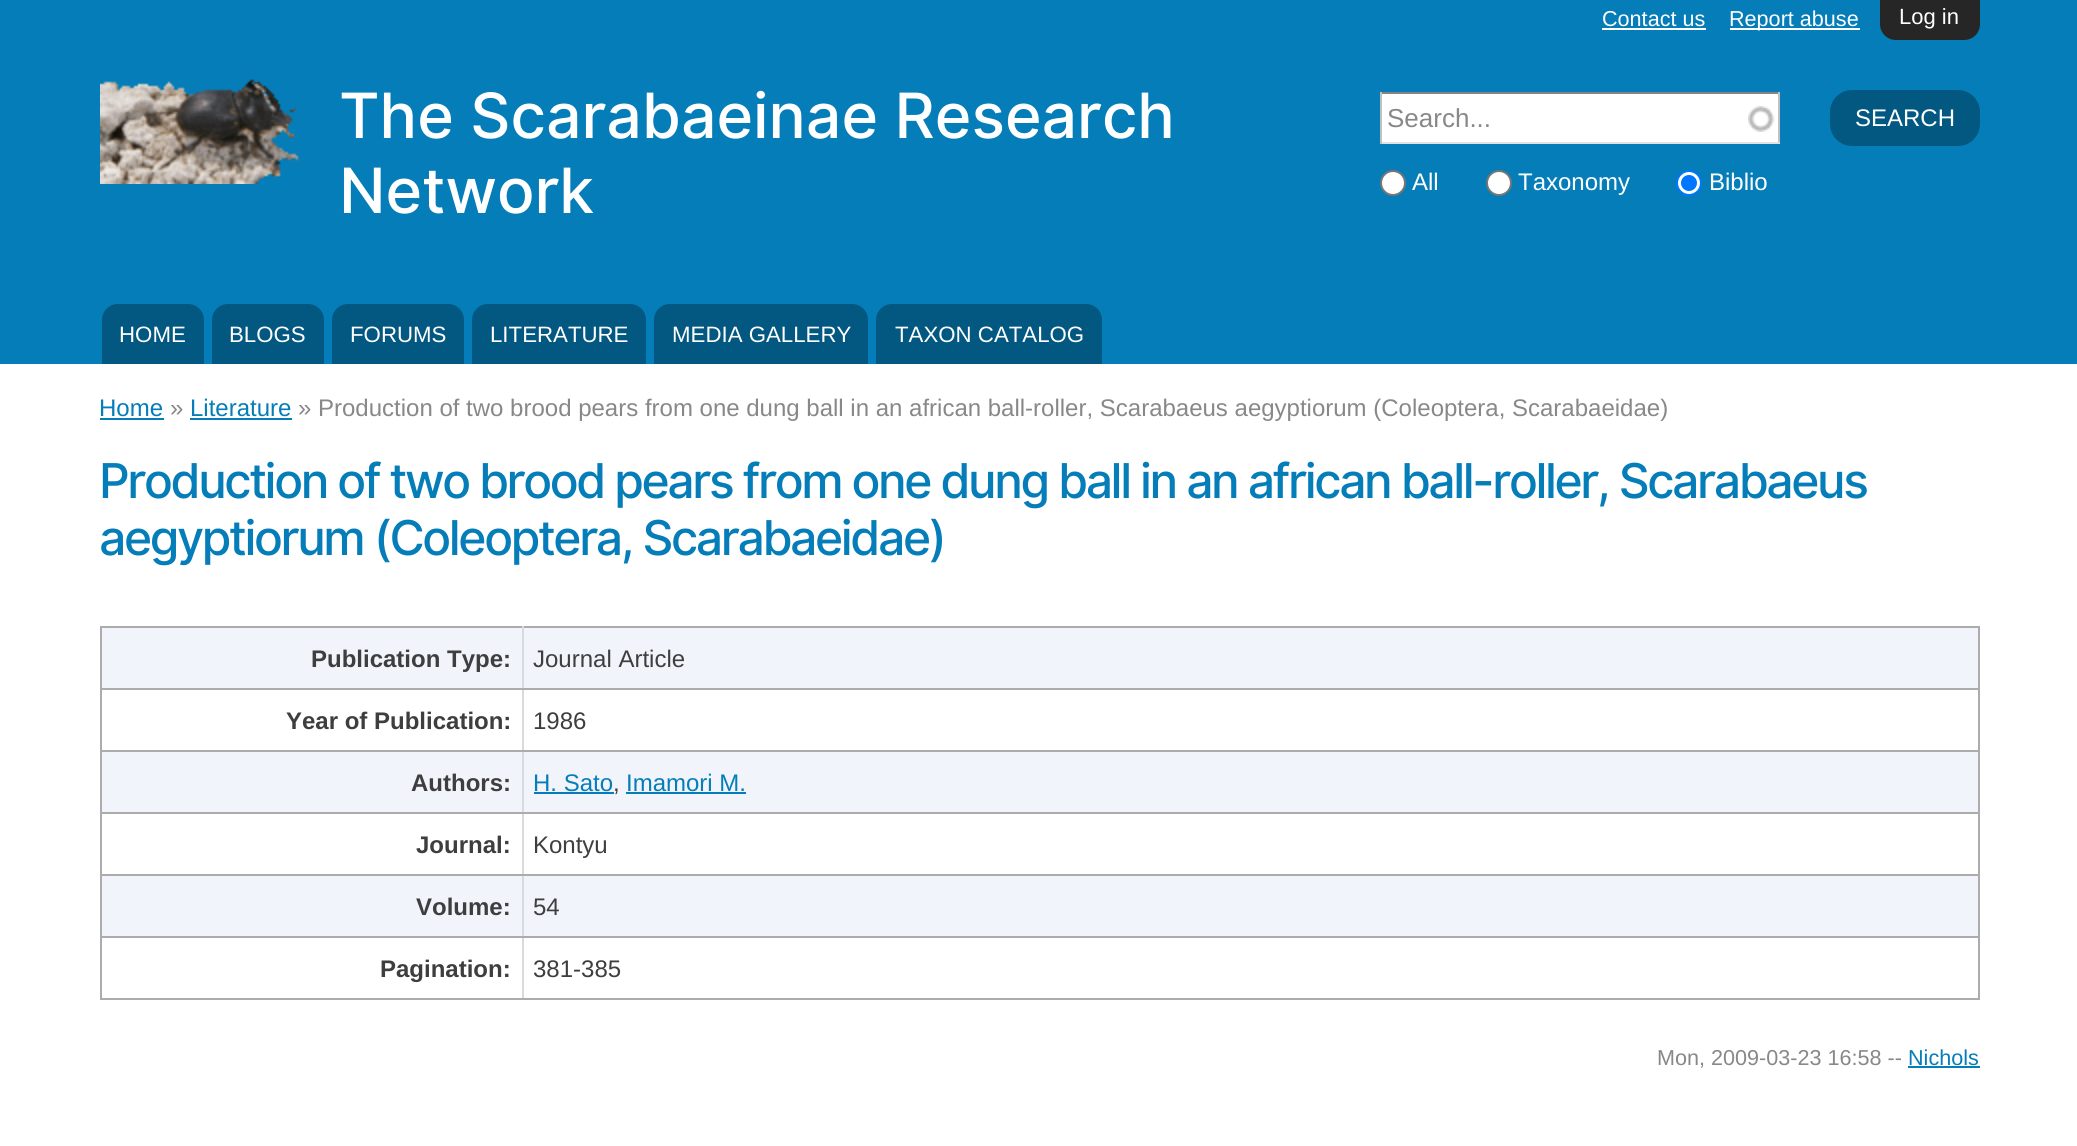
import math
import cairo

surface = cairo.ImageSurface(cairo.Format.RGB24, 2077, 1146)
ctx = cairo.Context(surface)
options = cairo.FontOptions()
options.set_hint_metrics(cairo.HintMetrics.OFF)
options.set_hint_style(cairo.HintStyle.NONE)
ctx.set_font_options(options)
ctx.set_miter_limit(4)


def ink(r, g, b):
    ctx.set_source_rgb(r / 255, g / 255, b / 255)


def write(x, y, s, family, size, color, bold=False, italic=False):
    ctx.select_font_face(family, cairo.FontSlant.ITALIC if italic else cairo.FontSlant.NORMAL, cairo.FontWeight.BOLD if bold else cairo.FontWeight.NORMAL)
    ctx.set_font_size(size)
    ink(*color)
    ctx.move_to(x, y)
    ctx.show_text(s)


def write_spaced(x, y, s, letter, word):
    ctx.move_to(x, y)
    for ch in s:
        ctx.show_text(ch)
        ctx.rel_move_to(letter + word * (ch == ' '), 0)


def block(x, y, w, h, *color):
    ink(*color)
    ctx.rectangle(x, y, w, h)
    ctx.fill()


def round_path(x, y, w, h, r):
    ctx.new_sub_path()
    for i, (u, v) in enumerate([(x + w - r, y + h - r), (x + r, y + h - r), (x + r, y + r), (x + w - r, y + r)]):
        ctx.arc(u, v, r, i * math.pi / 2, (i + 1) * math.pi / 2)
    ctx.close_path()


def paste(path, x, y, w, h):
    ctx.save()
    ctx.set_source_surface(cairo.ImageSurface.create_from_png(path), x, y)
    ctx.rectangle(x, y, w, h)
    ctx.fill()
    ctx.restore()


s1 = dict(family="Liberation Sans", size=22, color=(255, 255, 255))
s2 = dict(family="Liberation Sans", size=21.6, color=(255, 255, 255))
s3 = dict(family="Inter Medium", size=62.4, color=(255, 255, 255))
s4 = dict(family="Liberation Sans", size=26, color=(136, 136, 136))
s5 = dict(family="Liberation Sans", size=24, color=(255, 255, 255))
s6 = dict(family="Liberation Sans", size=22.25, color=(255, 255, 255))
s7 = dict(family="Liberation Sans", size=24, color=(4, 125, 184))
s8 = dict(family="Liberation Sans", size=24, color=(136, 136, 136))
s9 = dict(family="Liberation Sans", size=24, color=(62, 62, 62), bold=True)
s10 = dict(family="Liberation Sans", size=24, color=(62, 62, 62))
s11 = dict(family="Liberation Sans", size=21.6, color=(136, 136, 136))
s12 = dict(family="Liberation Sans", size=21.6, color=(4, 125, 184))

ink(255, 255, 255)
ctx.paint()
block(0, 0, 2077, 364, 4, 125, 184)
ink(38, 38, 38)
ctx.new_path()
ctx.move_to(1880, 0)
ctx.line_to(1980, 0)
ctx.line_to(1980, 24)
ctx.curve_to(1980, 33, 1973, 40, 1964, 40)
ctx.line_to(1896, 40)
ctx.curve_to(1887, 40, 1880, 33, 1880, 24)
ctx.close_path()
ctx.fill()
write(1899, 24, "Log in", **s1)
write(1602, 26, "Contact us", **s2)
block(1602, 28, 104, 2, 255, 255, 255)
block(1730, 28, 130, 2, 255, 255, 255)
write(1729, 26, "Report abuse", **s2)
paste("pic1.png", 100, 79, 199, 105)
write(339, 138, "The Scarabaeinae Research", **s3)
write(339, 213, "Network", **s3)
block(1382, 94, 396, 48, 255, 255, 255)
paste("pic2.png", 1748, 106, 27, 26)
block(1380, 92, 400, 2, 132, 132, 132)
block(1778, 92, 2, 52, 193, 193, 193)
block(1380, 142, 400, 2, 225, 225, 225)
block(1380, 92, 2, 52, 193, 193, 193)
write(1387, 127, "Search...", **s4)
ink(3, 88, 129)
round_path(1830, 90, 150, 56, 22)
ctx.fill()
write(1855, 126, "SEARCH", **s5)
ctx.new_path()
ctx.arc(1393, 183, 12, 0, 2 * math.pi)
ctx.fill_preserve()
ink(118, 118, 118)
ctx.stroke()
write(1412, 190, "All", **s5)
ctx.new_path()
ctx.arc(1499, 183, 12, 0, 2 * math.pi)
ctx.fill_preserve()
ink(118, 118, 118)
ctx.stroke()
write(1518, 190, "Taxonomy", **s5)
ctx.new_path()
ctx.arc(1689, 183, 12, 0, 2 * math.pi)
ctx.fill_preserve()
ink(0, 117, 255)
ctx.stroke()
ctx.arc(1689, 183, 8, 0, 2 * math.pi)
ctx.fill()
write(1709, 190, "Biblio", **s5)
ink(3, 88, 129)
ctx.new_path()
ctx.move_to(118, 304)
ctx.line_to(188, 304)
ctx.curve_to(197, 304, 204, 311, 204, 320)
ctx.line_to(204, 364)
ctx.line_to(102, 364)
ctx.line_to(102, 320)
ctx.curve_to(102, 311, 109, 304, 118, 304)
ctx.close_path()
ctx.fill()
write(119, 342, "HOME", **s6)
ink(3, 88, 129)
ctx.new_path()
ctx.move_to(228, 304)
ctx.line_to(308, 304)
ctx.curve_to(317, 304, 324, 311, 324, 320)
ctx.line_to(324, 364)
ctx.line_to(212, 364)
ctx.line_to(212, 320)
ctx.curve_to(212, 311, 219, 304, 228, 304)
ctx.close_path()
ctx.fill()
write(229, 342, "BLOGS", **s6)
ink(3, 88, 129)
ctx.new_path()
ctx.move_to(348, 304)
ctx.line_to(448, 304)
ctx.curve_to(457, 304, 464, 311, 464, 320)
ctx.line_to(464, 364)
ctx.line_to(332, 364)
ctx.line_to(332, 320)
ctx.curve_to(332, 311, 339, 304, 348, 304)
ctx.close_path()
ctx.fill()
write(350, 342, "FORUMS", **s6)
ink(3, 88, 129)
ctx.new_path()
ctx.move_to(488, 304)
ctx.line_to(630, 304)
ctx.curve_to(639, 304, 646, 311, 646, 320)
ctx.line_to(646, 364)
ctx.line_to(472, 364)
ctx.line_to(472, 320)
ctx.curve_to(472, 311, 479, 304, 488, 304)
ctx.close_path()
ctx.fill()
write(490, 342, "LITERATURE", **s6)
ink(3, 88, 129)
ctx.new_path()
ctx.move_to(670, 304)
ctx.line_to(852, 304)
ctx.curve_to(861, 304, 868, 311, 868, 320)
ctx.line_to(868, 364)
ctx.line_to(654, 364)
ctx.line_to(654, 320)
ctx.curve_to(654, 311, 661, 304, 670, 304)
ctx.close_path()
ctx.fill()
write(672, 342, "MEDIA GALLERY", **s6)
ink(3, 88, 129)
ctx.new_path()
ctx.move_to(892, 304)
ctx.line_to(1086, 304)
ctx.curve_to(1095, 304, 1102, 311, 1102, 320)
ctx.line_to(1102, 364)
ctx.line_to(876, 364)
ctx.line_to(876, 320)
ctx.curve_to(876, 311, 883, 304, 892, 304)
ctx.close_path()
ctx.fill()
write(895, 342, "TAXON CATALOG", **s6)
write(99, 416, "Home", **s7)
block(100, 418, 64, 2, 4, 125, 184)
write(170, 416, "»", **s8)
write(190, 416, "Literature", **s7)
block(190, 418, 102, 2, 4, 125, 184)
write(298, 416, "» Production of two brood pears from one dung ball in an african ball-roller, Scarabaeus aegyptiorum (Coleoptera, Scarabaeidae)", **s8)
ctx.select_font_face("Inter Medium")
ctx.set_font_size(48)
ink(4, 125, 184)
write_spaced(99, 498, "Production of two brood pears from one dung ball in an african ball-roller, Scarabaeus", -2.4, 0)
write_spaced(99, 555, "aegyptiorum (Coleoptera, Scarabaeidae)", -2.4, 0)
block(102, 628, 1876, 60, 241, 244, 251)
block(100, 626, 1880, 2, 172, 172, 172)
block(1978, 688, 2, 312, 172, 172, 172)
block(1978, 626, 2, 64, 172, 172, 172)
block(102, 752, 1876, 60, 241, 244, 251)
block(102, 876, 1876, 60, 241, 244, 251)
block(522, 998, 1458, 2, 172, 172, 172)
block(522, 936, 2, 64, 217, 218, 221)
block(522, 936, 1458, 2, 172, 172, 172)
block(522, 874, 2, 64, 217, 218, 221)
block(522, 874, 1458, 2, 172, 172, 172)
block(522, 812, 2, 64, 217, 218, 221)
block(522, 812, 1458, 2, 172, 172, 172)
block(522, 750, 2, 64, 217, 218, 221)
block(522, 750, 1458, 2, 172, 172, 172)
block(522, 688, 2, 64, 217, 218, 221)
block(522, 688, 1458, 2, 172, 172, 172)
block(522, 626, 2, 64, 217, 218, 221)
block(100, 998, 424, 2, 172, 172, 172)
block(100, 936, 2, 64, 172, 172, 172)
block(100, 936, 424, 2, 172, 172, 172)
block(100, 874, 2, 64, 172, 172, 172)
block(100, 874, 424, 2, 172, 172, 172)
block(100, 812, 2, 64, 172, 172, 172)
block(100, 812, 424, 2, 172, 172, 172)
block(100, 750, 2, 64, 172, 172, 172)
block(100, 750, 424, 2, 172, 172, 172)
block(100, 688, 2, 64, 172, 172, 172)
block(100, 688, 424, 2, 172, 172, 172)
block(100, 626, 2, 64, 172, 172, 172)
write(311, 667, "Publication Type:", **s9)
write(533, 667, "Journal Article", **s10)
write(286, 729, "Year of Publication:", **s9)
write(533, 729, "1986", **s10)
write(411, 791, "Authors:", **s9)
write(533, 791, "H. Sato", **s7)
block(534, 792, 80, 2, 4, 125, 184)
write(613, 791, ",", **s10)
write(626, 791, "Imamori M.", **s7)
block(626, 792, 120, 2, 4, 125, 184)
write(416, 853, "Journal:", **s9)
write(533, 853, "Kontyu", **s10)
write(416, 915, "Volume:", **s9)
write(533, 915, "54", **s10)
write(380, 977, "Pagination:", **s9)
write(533, 977, "381-385", **s10)
write(1657, 1065, "Mon, 2009-03-23 16:58 --", **s11)
write(1908, 1065, "Nichols", **s12)
block(1908, 1066, 72, 2, 4, 125, 184)
surface.write_to_png("screenshot.png")
